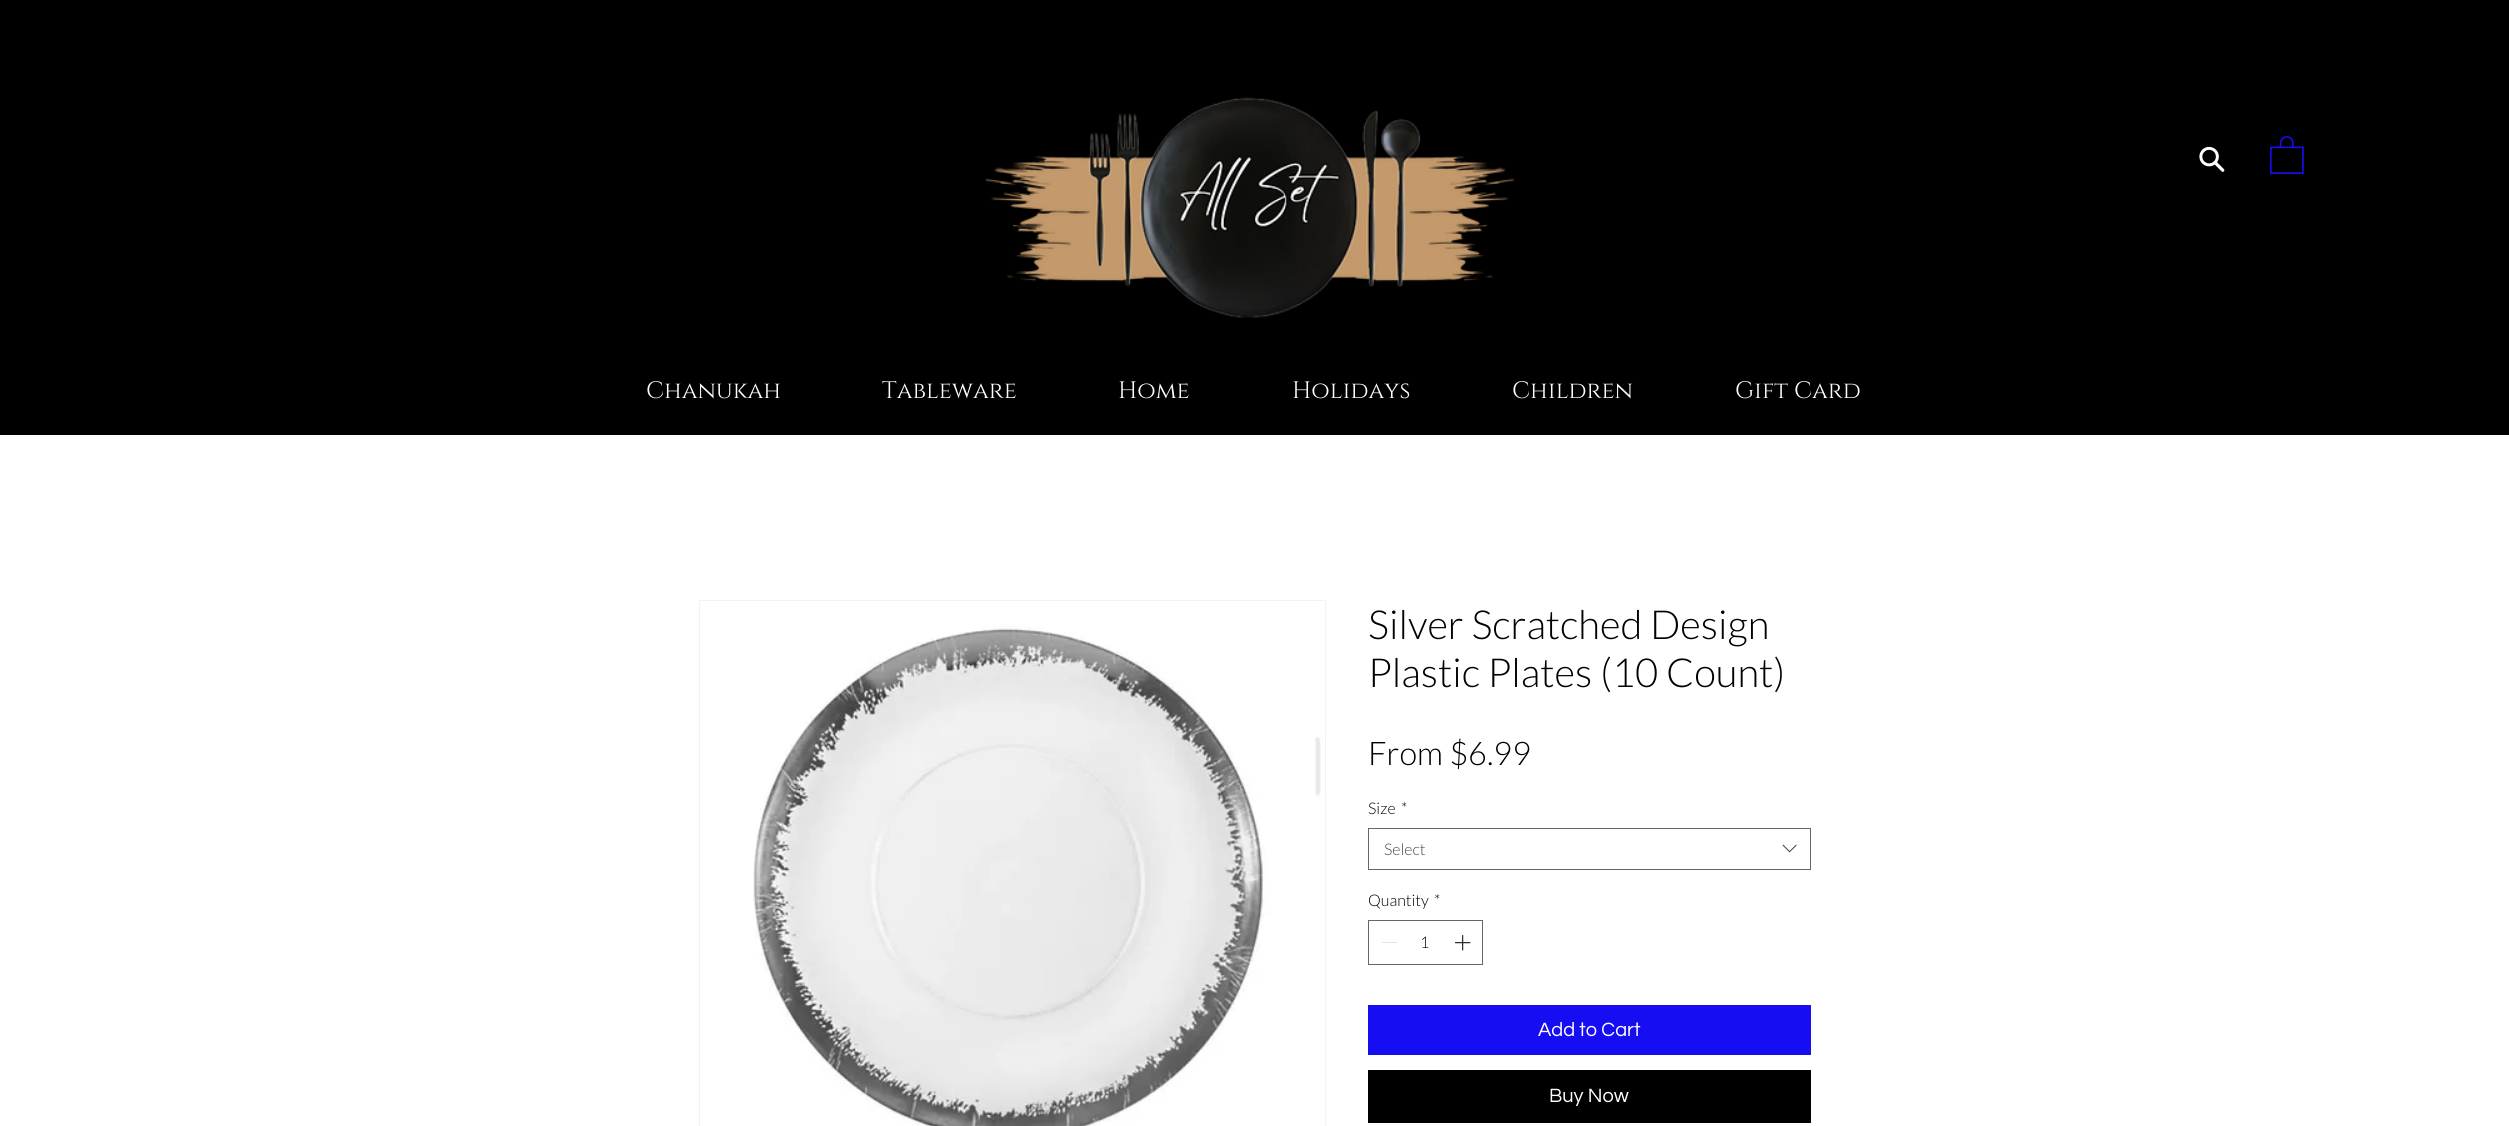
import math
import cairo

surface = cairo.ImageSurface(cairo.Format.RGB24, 2509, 1126)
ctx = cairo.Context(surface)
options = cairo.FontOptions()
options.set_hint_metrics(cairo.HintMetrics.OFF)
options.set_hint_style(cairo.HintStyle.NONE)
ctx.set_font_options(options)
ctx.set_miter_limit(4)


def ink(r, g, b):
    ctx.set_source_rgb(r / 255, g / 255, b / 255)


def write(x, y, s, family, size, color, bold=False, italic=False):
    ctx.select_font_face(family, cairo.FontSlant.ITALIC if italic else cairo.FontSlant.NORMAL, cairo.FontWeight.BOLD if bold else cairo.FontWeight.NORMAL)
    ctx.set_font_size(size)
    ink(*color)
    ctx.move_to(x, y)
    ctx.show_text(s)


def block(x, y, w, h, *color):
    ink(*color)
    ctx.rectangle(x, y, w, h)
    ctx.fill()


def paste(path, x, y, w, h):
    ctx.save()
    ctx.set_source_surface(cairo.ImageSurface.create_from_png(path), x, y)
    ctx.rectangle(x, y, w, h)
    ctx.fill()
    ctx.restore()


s1 = dict(family="Cinzel", size=23.75, color=(255, 255, 255))
s2 = dict(family="Lato Light", size=40, color=(0, 0, 0))
s3 = dict(family="Lato Light", size=32.5, color=(0, 0, 0))
s4 = dict(family="Lato Light", size=16, color=(0, 0, 0))
s5 = dict(family="Lato Light", size=16, color=(68, 68, 68))
s6 = dict(family="Questrial", size=20, color=(255, 255, 255))

ink(255, 255, 255)
ctx.paint()
block(0, 0, 2509, 435, 0, 0, 0)
paste("pic1.png", 985, 97, 530, 221)
paste("pic2.png", 2199, 146, 26, 26)
paste("pic3.png", 2270, 136, 34, 38)
write(646, 398, "Chanukah", **s1)
write(882, 398, "Tableware", **s1)
write(1118, 398, "Home", **s1)
write(1292, 398, "Holidays", **s1)
write(1512, 398, "Children", **s1)
write(1735, 398, "Gift Card", **s1)
ctx.rectangle(699.5, 600.5, 626, 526)
ink(255, 235, 255)
ctx.set_line_width(1)
ctx.stroke()
paste("pic4.png", 753, 626, 568, 500)
write(1368, 639, "Silver Scratched Design", **s2)
write(1368, 687, "Plastic Plates (10 Count)", **s2)
write(1368, 765, "From $6.99", **s3)
write(1368, 814, "Size", **s4)
write(1401, 814, "*", **s4)
ctx.rectangle(1368.5, 828.5, 442, 41)
ink(102, 102, 102)
ctx.stroke()
write(1384, 855, "Select", **s5)
paste("pic5.png", 1782, 844, 15, 9)
write(1368, 906, "Quantity", **s4)
write(1434, 906, "*", **s4)
ctx.rectangle(1368.5, 920.5, 114, 44)
ink(102, 102, 102)
ctx.stroke()
block(1382, 942, 15, 1, 227, 227, 227)
write(1420, 948, "1", **s4)
paste("pic6.png", 1455, 935, 16, 16)
block(1368, 1005, 443, 50, 23, 13, 242)
write(1538, 1036, "Add to Cart", **s6)
block(1368, 1070, 443, 53, 0, 0, 0)
write(1549, 1102, "Buy Now", **s6)
surface.write_to_png("screenshot.png")
